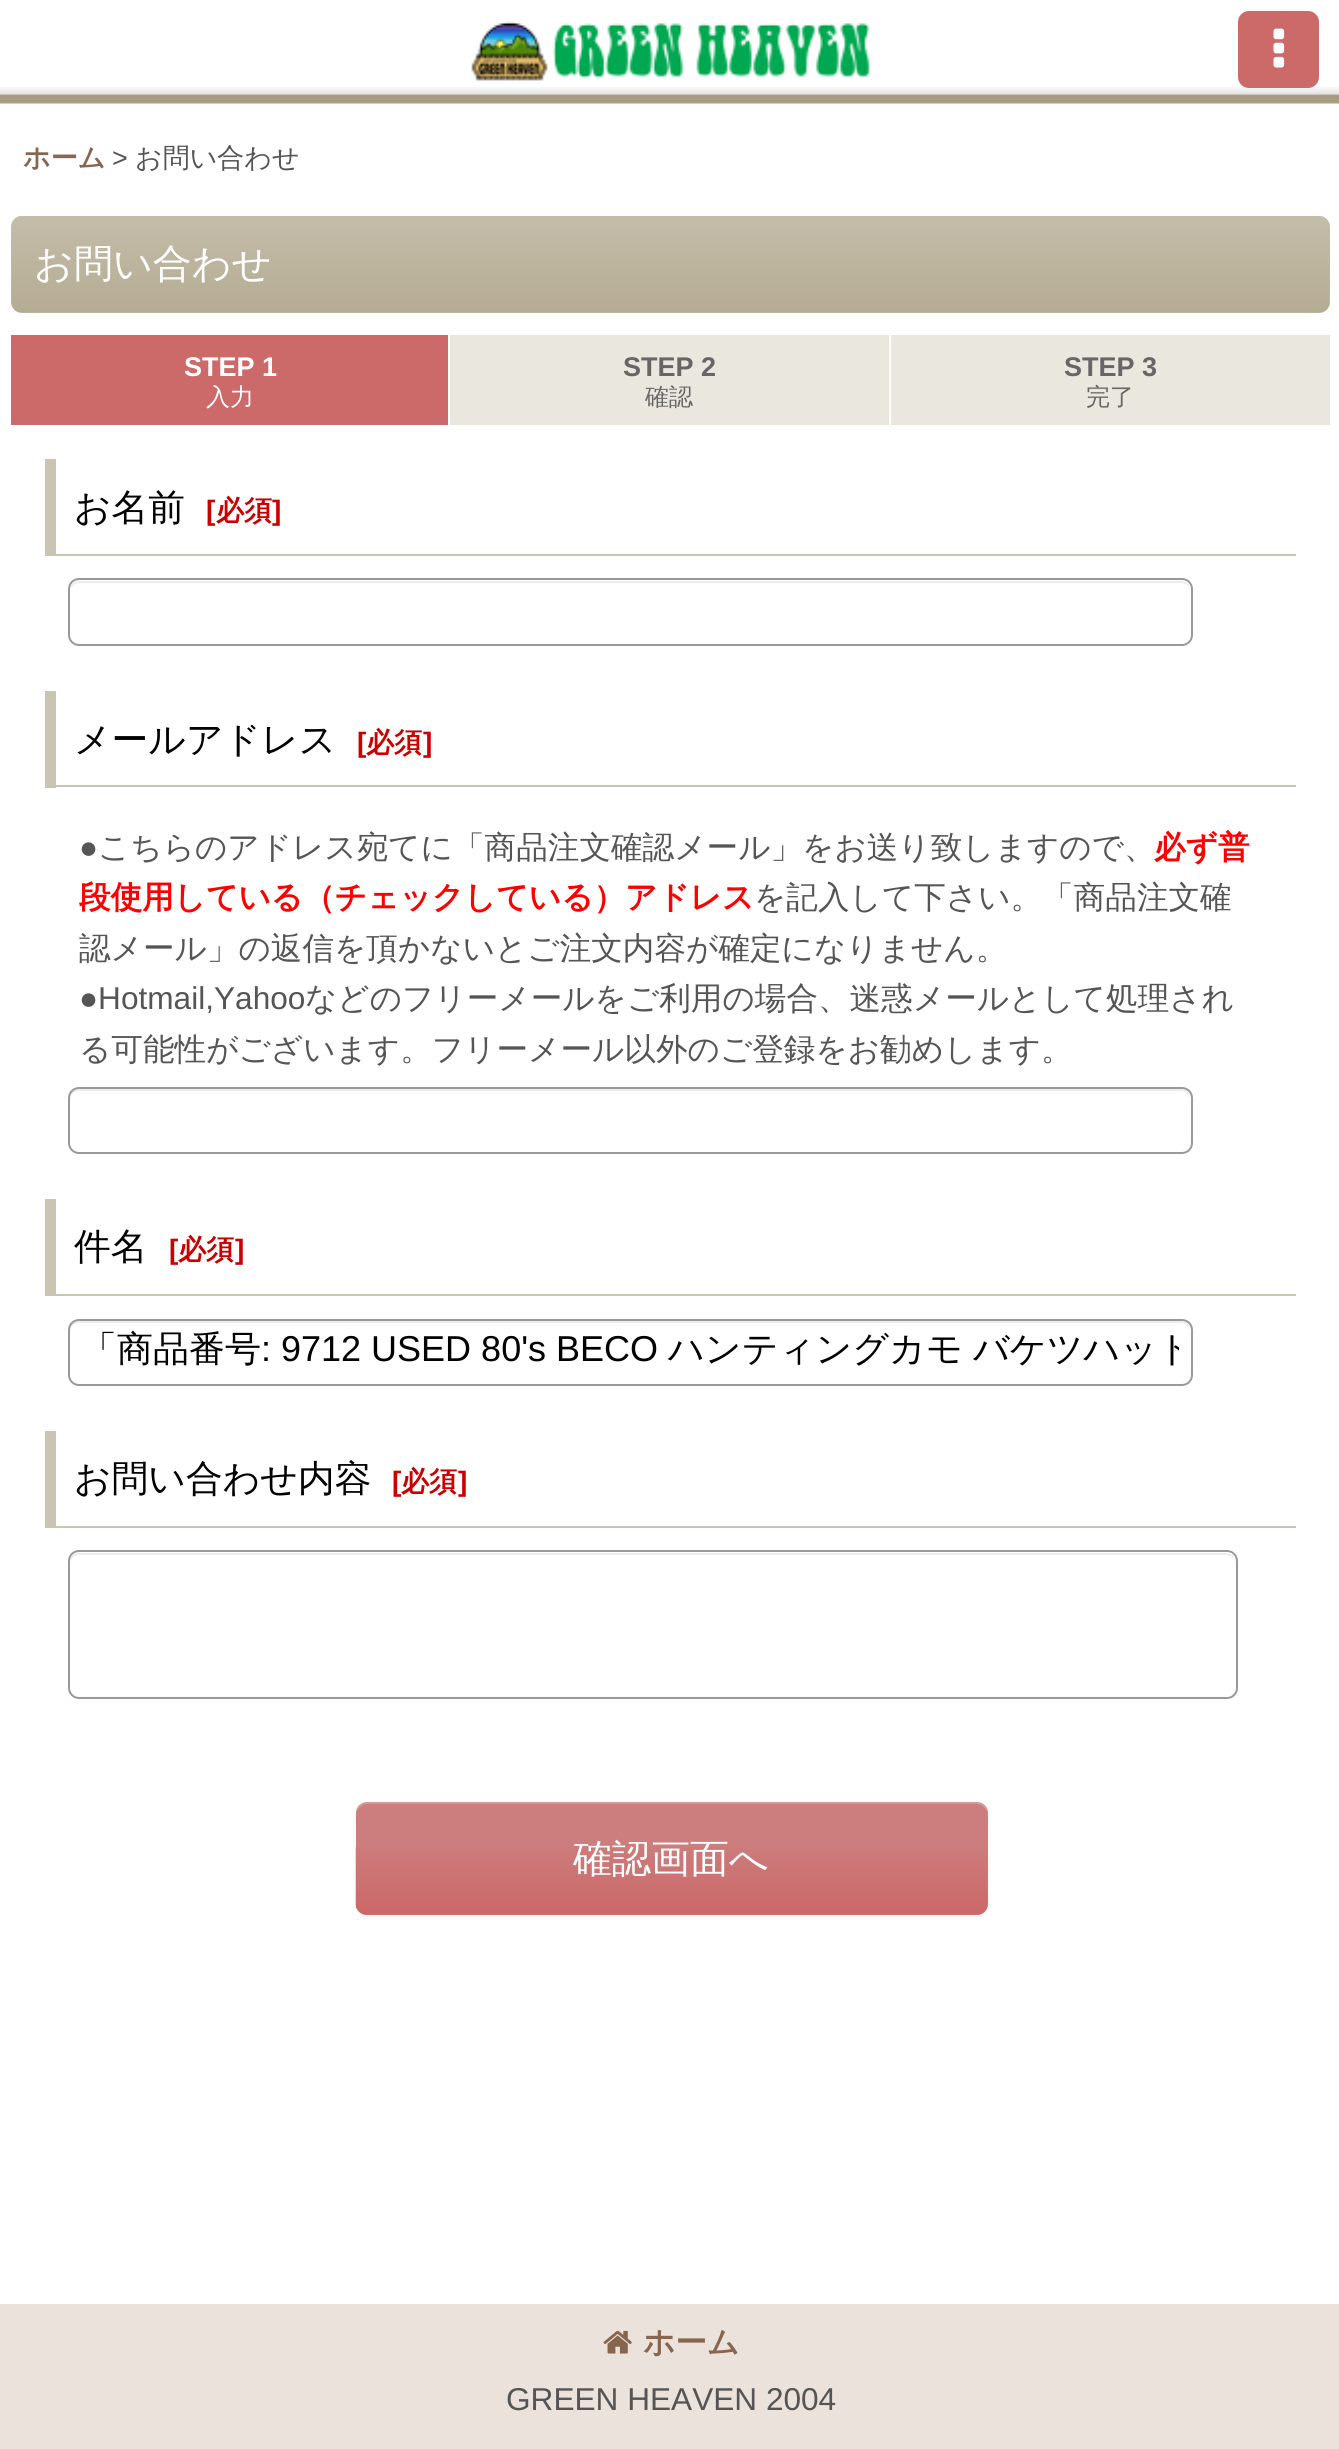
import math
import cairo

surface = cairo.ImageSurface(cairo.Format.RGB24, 1339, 2449)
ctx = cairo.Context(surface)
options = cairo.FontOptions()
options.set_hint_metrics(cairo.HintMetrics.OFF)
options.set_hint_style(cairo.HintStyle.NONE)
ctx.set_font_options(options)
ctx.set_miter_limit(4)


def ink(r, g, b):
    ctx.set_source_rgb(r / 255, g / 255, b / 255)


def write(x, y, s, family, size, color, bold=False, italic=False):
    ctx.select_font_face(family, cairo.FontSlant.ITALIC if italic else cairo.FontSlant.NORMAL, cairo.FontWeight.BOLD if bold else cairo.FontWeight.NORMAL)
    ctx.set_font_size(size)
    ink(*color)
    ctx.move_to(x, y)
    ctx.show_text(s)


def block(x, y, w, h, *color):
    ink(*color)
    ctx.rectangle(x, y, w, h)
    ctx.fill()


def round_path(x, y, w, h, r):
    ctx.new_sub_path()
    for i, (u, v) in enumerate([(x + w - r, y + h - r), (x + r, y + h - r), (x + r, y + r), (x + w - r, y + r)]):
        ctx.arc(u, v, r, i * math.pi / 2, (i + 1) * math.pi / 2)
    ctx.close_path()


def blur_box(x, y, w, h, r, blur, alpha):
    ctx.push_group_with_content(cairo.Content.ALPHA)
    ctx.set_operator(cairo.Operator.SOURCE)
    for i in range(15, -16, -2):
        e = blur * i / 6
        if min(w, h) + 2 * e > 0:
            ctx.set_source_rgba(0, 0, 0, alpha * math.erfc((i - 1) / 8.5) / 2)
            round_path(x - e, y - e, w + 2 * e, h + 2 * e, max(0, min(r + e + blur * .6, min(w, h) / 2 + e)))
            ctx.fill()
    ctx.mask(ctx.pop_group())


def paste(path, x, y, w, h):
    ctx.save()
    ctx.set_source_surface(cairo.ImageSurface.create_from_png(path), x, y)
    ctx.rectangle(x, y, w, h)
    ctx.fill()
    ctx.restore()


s1 = dict(family="WenQuanYi Zen Hei", size=27, color=(135, 101, 78), bold=True)
s2 = dict(family="Liberation Sans", size=27, color=(85, 85, 85))
s3 = dict(family="WenQuanYi Zen Hei Medium", size=27, color=(85, 85, 85))
s4 = dict(family="WenQuanYi Zen Hei Medium", size=39, color=(255, 255, 255))
s5 = dict(family="Liberation Sans", size=27, color=(255, 255, 255), bold=True)
s6 = dict(family="WenQuanYi Zen Hei Medium", size=24, color=(255, 255, 255))
s7 = dict(family="Liberation Sans", size=27, color=(102, 102, 102), bold=True)
s8 = dict(family="WenQuanYi Zen Hei Medium", size=24, color=(102, 102, 102))
s9 = dict(family="WenQuanYi Zen Hei Medium", size=36.75, color=(0, 0, 0))
s10 = dict(family="Liberation Sans", size=28, color=(204, 0, 0), bold=True)
s11 = dict(family="WenQuanYi Zen Hei", size=28, color=(204, 0, 0), bold=True)
s12 = dict(family="Liberation Sans", size=31.6, color=(85, 85, 85))
s13 = dict(family="WenQuanYi Zen Hei Medium", size=31.6, color=(85, 85, 85))
s14 = dict(family="WenQuanYi Zen Hei", size=31.6, color=(255, 0, 0), bold=True)
s15 = dict(family="WenQuanYi Zen Hei Medium", size=36, color=(0, 0, 0))
s16 = dict(family="Liberation Sans", size=36, color=(0, 0, 0))
s17 = dict(family="WenQuanYi Zen Hei", size=31.6, color=(135, 101, 78), bold=True)

ink(255, 255, 255)
ctx.paint()
paste("pic1.png", 0, 87, 1339, 17)
paste("pic2.png", 470, 21, 400, 60)
ink(204, 105, 105)
round_path(1238, 11, 81, 77, 11)
ctx.fill()
paste("pic3.png", 1273, 28, 12, 40)
write(23, 167, "ホーム", **s1)
write(112, 167, ">", **s2)
write(135, 167, "お問い合わせ", **s3)
ink(198, 191, 172)
round_path(11, 216, 1319, 97, 11)
ctx.fill()
paste("pic4.png", 11, 216, 1319, 97)
write(34, 277, "お問い合わせ", **s4)
block(11, 335, 437, 90, 204, 106, 106)
write(184, 376, "STEP 1", **s5)
write(206, 405, "入力", **s6)
block(450, 335, 439, 90, 234, 231, 223)
write(623, 376, "STEP 2", **s7)
write(645, 405, "確認", **s8)
block(891, 335, 439, 90, 234, 231, 223)
write(1064, 376, "STEP 3", **s7)
write(1086, 405, "完了", **s8)
block(56, 554, 1240, 2, 202, 197, 179)
block(45, 459, 11, 97, 202, 197, 179)
write(74, 520, "お名前", **s9)
write(206, 520, "[", **s10)
write(216, 520, "必須", **s11)
write(272, 520, "]", **s10)
ink(236, 236, 236)
ctx.new_path()
ctx.move_to(79, 583)
ctx.line_to(1181, 583)
ctx.curve_to(1186, 583, 1190, 587, 1190, 592)
ctx.line_to(1190, 590)
ctx.curve_to(1190, 585, 1186, 581, 1181, 581)
ctx.line_to(79, 581)
ctx.curve_to(74, 581, 70, 585, 70, 590)
ctx.line_to(70, 592)
ctx.curve_to(70, 587, 74, 583, 79, 583)
ctx.close_path()
ctx.fill()
round_path(69, 579, 1123, 66, 10)
ink(153, 153, 153)
ctx.stroke()
block(56, 785, 1240, 2, 202, 197, 179)
block(45, 691, 11, 97, 202, 197, 179)
write(74, 752, "メールアドレス", **s9)
write(357, 752, "[", **s10)
write(366, 752, "必須", **s11)
write(423, 752, "]", **s10)
write(79, 858, "●", **s12)
write(98, 858, "こちらのアドレス宛てに「商品注文確認メール」をお送り致しますので、", **s13)
write(1154, 858, "必ず普", **s14)
write(79, 908, "段使用している（チェックしている）アドレス", **s14)
write(754, 908, "を記入して下さい。「商品注文確", **s13)
write(79, 959, "認メール」の返信を頂かないとご注文内容が確定になりません。", **s13)
write(79, 1009, "●Hotmail,Yahoo", **s12)
write(305, 1009, "などのフリーメールをご利用の場合、迷惑メールとして処理され", **s13)
write(79, 1060, "る可能性がございます。フリーメール以外のご登録をお勧めします。", **s13)
ink(236, 236, 236)
ctx.new_path()
ctx.move_to(79, 1091)
ctx.line_to(1181, 1091)
ctx.curve_to(1186, 1091, 1190, 1095, 1190, 1100)
ctx.line_to(1190, 1098)
ctx.curve_to(1190, 1093, 1186, 1089, 1181, 1089)
ctx.line_to(79, 1089)
ctx.curve_to(74, 1089, 70, 1093, 70, 1098)
ctx.line_to(70, 1100)
ctx.curve_to(70, 1095, 74, 1091, 79, 1091)
ctx.close_path()
ctx.fill()
round_path(69, 1088, 1123, 65, 10)
ink(153, 153, 153)
ctx.stroke()
block(56, 1294, 1240, 2, 202, 197, 179)
block(45, 1199, 11, 97, 202, 197, 179)
write(74, 1259, "件名", **s9)
write(169, 1259, "[", **s10)
write(178, 1259, "必須", **s11)
write(235, 1259, "]", **s10)
ink(236, 236, 236)
ctx.new_path()
ctx.move_to(79, 1323)
ctx.line_to(1181, 1323)
ctx.curve_to(1186, 1323, 1190, 1327, 1190, 1332)
ctx.line_to(1190, 1330)
ctx.curve_to(1190, 1325, 1186, 1321, 1181, 1321)
ctx.line_to(79, 1321)
ctx.curve_to(74, 1321, 70, 1325, 70, 1330)
ctx.line_to(70, 1332)
ctx.curve_to(70, 1327, 74, 1323, 79, 1323)
ctx.close_path()
ctx.fill()
round_path(69, 1320, 1123, 65, 10)
ink(153, 153, 153)
ctx.stroke()
write(81, 1361, "「商品番号", **s15)
write(261, 1361, ": 9712 USED 80's BECO", **s16)
write(668, 1361, "ハンティングカモ", **s15)
ctx.save()
ctx.rectangle(81, 1328, 1098, 47)
ctx.clip()
write(973, 1361, "バケツハット", **s15)
ctx.restore()
block(56, 1526, 1240, 2, 202, 197, 179)
block(45, 1431, 11, 97, 202, 197, 179)
write(74, 1491, "お問い合わせ内容", **s9)
write(392, 1491, "[", **s10)
write(401, 1491, "必須", **s11)
write(458, 1491, "]", **s10)
ink(236, 236, 236)
ctx.new_path()
ctx.move_to(79, 1555)
ctx.line_to(1226, 1555)
ctx.curve_to(1231, 1555, 1235, 1559, 1235, 1564)
ctx.line_to(1235, 1562)
ctx.curve_to(1235, 1557, 1231, 1553, 1226, 1553)
ctx.line_to(79, 1553)
ctx.curve_to(74, 1553, 70, 1557, 70, 1562)
ctx.line_to(70, 1564)
ctx.curve_to(70, 1559, 74, 1555, 79, 1555)
ctx.close_path()
ctx.fill()
round_path(69, 1551, 1168, 147, 10)
ink(153, 153, 153)
ctx.stroke()
ink(0, 0, 0)
blur_box(356, 1805, 632, 112, 11, 2, 0.05)
ink(204, 126, 126)
round_path(356, 1802, 632, 113, 11)
ctx.fill()
paste("pic5.png", 355, 1847, 633, 68)
ctx.set_source_rgba(1, 1, 1, 0.2)
ctx.new_path()
ctx.move_to(367, 1804)
ctx.line_to(976, 1804)
ctx.curve_to(983, 1804, 988, 1810, 988, 1816)
ctx.curve_to(988, 1809, 985, 1802, 977, 1802)
ctx.line_to(367, 1802)
ctx.curve_to(359, 1802, 356, 1809, 356, 1816)
ctx.curve_to(356, 1810, 361, 1804, 367, 1804)
ctx.close_path()
ctx.fill()
write(573, 1872, "確認画面へ", **s4)
block(0, 2304, 1339, 145, 235, 226, 220)
paste("pic6.png", 603, 2330, 29, 24)
write(643, 2353, "ホーム", **s17)
write(506, 2410, "GREEN HEAVEN 2004", **s12)
surface.write_to_png("screenshot.png")
